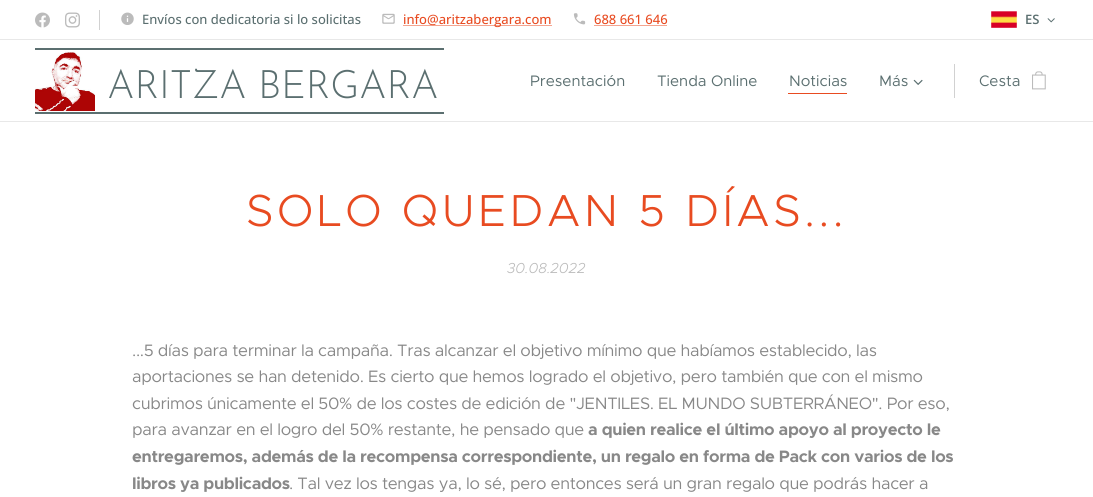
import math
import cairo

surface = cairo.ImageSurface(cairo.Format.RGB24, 1093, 497)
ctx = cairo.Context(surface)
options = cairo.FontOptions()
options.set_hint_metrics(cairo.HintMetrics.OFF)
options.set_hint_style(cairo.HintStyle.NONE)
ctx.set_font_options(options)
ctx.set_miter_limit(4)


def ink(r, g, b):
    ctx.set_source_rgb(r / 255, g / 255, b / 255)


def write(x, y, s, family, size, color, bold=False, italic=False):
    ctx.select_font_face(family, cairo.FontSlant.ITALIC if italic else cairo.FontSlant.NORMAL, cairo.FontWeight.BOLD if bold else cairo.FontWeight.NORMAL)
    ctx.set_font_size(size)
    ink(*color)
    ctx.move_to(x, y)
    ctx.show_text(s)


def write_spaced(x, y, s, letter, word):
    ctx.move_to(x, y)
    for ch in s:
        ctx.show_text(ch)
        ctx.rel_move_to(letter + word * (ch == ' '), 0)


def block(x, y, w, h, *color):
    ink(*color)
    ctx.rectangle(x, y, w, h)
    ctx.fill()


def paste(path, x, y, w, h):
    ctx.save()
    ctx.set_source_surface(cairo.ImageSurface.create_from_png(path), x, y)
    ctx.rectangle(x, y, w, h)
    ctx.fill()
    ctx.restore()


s1 = dict(family="Open Sans Medium", size=13, color=(91, 111, 112))
s2 = dict(family="Open Sans Medium", size=13, color=(232, 75, 33))
s3 = dict(family="Open Sans SemiBold", size=13, color=(91, 111, 112))
s4 = dict(family="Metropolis", size=15.25, color=(91, 111, 112))
s5 = dict(family="Metropolis Light", size=14.5, color=(187, 187, 187), italic=True)

ink(255, 255, 255)
ctx.paint()
paste("pic1.png", 35, 12, 15, 16)
paste("pic2.png", 65, 12, 15, 16)
block(99, 10, 1, 20, 209, 209, 209)
paste("pic3.png", 121, 12, 13, 13)
write(142, 24, "Envíos con dedicatoria si lo solicitas", **s1)
paste("pic4.png", 382, 13, 13, 11)
block(403, 25, 149, 1, 244, 165, 144)
write(403, 24, "info@aritzabergara.com", **s2)
paste("pic5.png", 573, 13, 13, 12)
write(594, 24, "688 661 646", **s2)
block(594, 25, 73, 1, 244, 165, 144)
paste("pic6.png", 991, 11, 26, 17)
write(1025, 24, "ES", **s3)
paste("pic7.png", 1047, 18, 8, 5)
block(0, 39, 1093, 1, 232, 232, 232)
block(35, 48, 409, 2, 91, 111, 112)
block(35, 112, 409, 2, 91, 111, 112)
paste("pic8.png", 35, 51, 60, 60)
ctx.select_font_face("Josefin Sans Light")
ctx.set_font_size(39.25)
write_spaced(107, 98, "ARITZA BERGARA", -0.32, 0)
write(530, 86, "Presentación", **s4)
write(657, 86, "Tienda Online", **s4)
write(789, 86, "Noticias", **s4)
block(788, 93, 59, 1, 232, 75, 33)
write(879, 86, "Más", **s4)
paste("pic9.png", 913, 79, 10, 6)
block(954, 64, 1, 34, 209, 209, 209)
write(979, 86, "Cesta", **s4)
paste("pic10.png", 1032, 71, 14, 19)
block(0, 121, 1093, 1, 232, 232, 232)
ctx.select_font_face("Metropolis Light")
ctx.set_font_size(45)
ink(232, 75, 33)
write_spaced(246, 226, "SOLO QUEDAN 5 DÍAS...", 3.6, 0)
write(507, 273, "30.08.2022", **s5)
ctx.select_font_face("Metropolis")
ctx.set_font_size(16.6)
ink(136, 136, 136)
write_spaced(132, 356, "...5 días para terminar la campaña. Tras alcanzar el objetivo mínimo que habíamos establecido, las", -0.32, 0)
write_spaced(132, 382, "aportaciones se han detenido. Es cierto que hemos logrado el objetivo, pero también que con el mismo", -0.32, 0)
write_spaced(132, 409, "cubrimos únicamente el 50% de los costes de edición de \"JENTILES. EL MUNDO SUBTERRÁNEO\". Por eso,", -0.32, 0)
write_spaced(132, 435, "para avanzar en el logro del 50% restante, he pensado que", -0.32, 0)
ctx.select_font_face("Metropolis", cairo.FontSlant.NORMAL, cairo.FontWeight.BOLD)
write_spaced(588, 435, "a quien realice el último apoyo al proyecto le", -0.32, 0)
write_spaced(132, 462, "entregaremos, además de la recompensa correspondiente, un regalo en forma de Pack con varios de los", -0.32, 0)
write_spaced(132, 489, "libros ya publicados", -0.32, 0)
ctx.select_font_face("Metropolis")
write_spaced(289, 489, ". Tal vez los tengas ya, lo sé, pero entonces será un gran regalo que podrás hacer a", -0.32, 0)
surface.write_to_png("screenshot.png")
